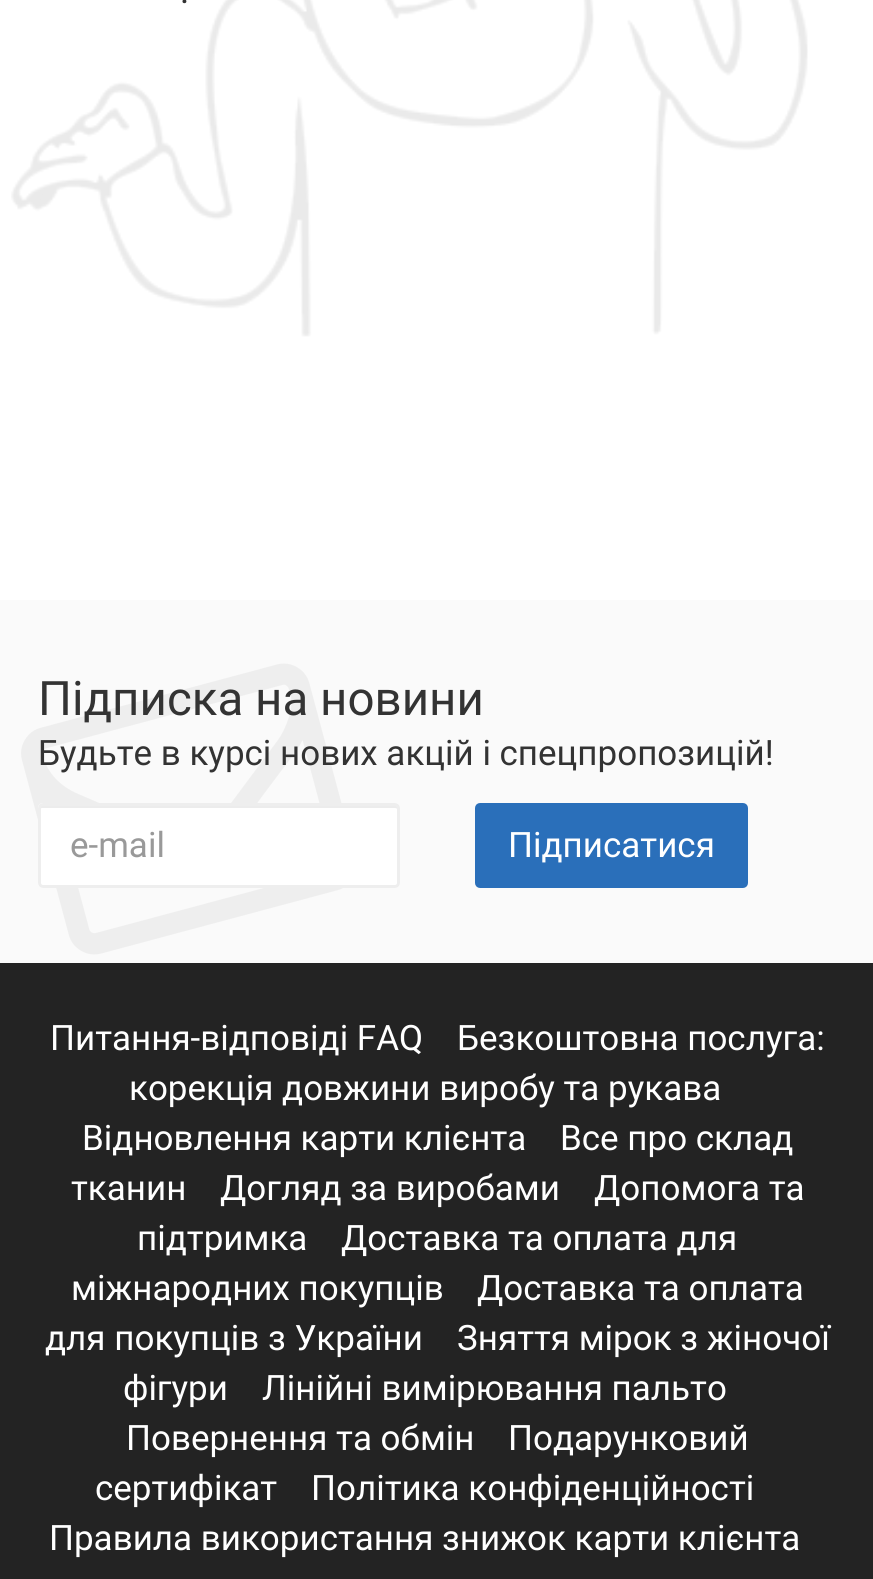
import math
import cairo

surface = cairo.ImageSurface(cairo.Format.RGB24, 873, 1579)
ctx = cairo.Context(surface)
options = cairo.FontOptions()
options.set_hint_metrics(cairo.HintMetrics.OFF)
options.set_hint_style(cairo.HintStyle.NONE)
ctx.set_font_options(options)
ctx.set_miter_limit(4)


def ink(r, g, b):
    ctx.set_source_rgb(r / 255, g / 255, b / 255)


def write(x, y, s, family, size, color, bold=False, italic=False):
    ctx.select_font_face(family, cairo.FontSlant.ITALIC if italic else cairo.FontSlant.NORMAL, cairo.FontWeight.BOLD if bold else cairo.FontWeight.NORMAL)
    ctx.set_font_size(size)
    ink(*color)
    ctx.move_to(x, y)
    ctx.show_text(s)


def block(x, y, w, h, *color):
    ink(*color)
    ctx.rectangle(x, y, w, h)
    ctx.fill()


def round_path(x, y, w, h, r):
    ctx.new_sub_path()
    for i, (u, v) in enumerate([(x + w - r, y + h - r), (x + r, y + h - r), (x + r, y + r), (x + w - r, y + r)]):
        ctx.arc(u, v, r, i * math.pi / 2, (i + 1) * math.pi / 2)
    ctx.close_path()


def paste(path, x, y, w, h):
    ctx.save()
    ctx.set_source_surface(cairo.ImageSurface.create_from_png(path), x, y)
    ctx.rectangle(x, y, w, h)
    ctx.fill()
    ctx.restore()


s1 = dict(family="Roboto", size=35, color=(51, 51, 51))
s2 = dict(family="Roboto", size=47.5, color=(51, 51, 51))
s3 = dict(family="Roboto", size=35, color=(153, 153, 153))
s4 = dict(family="Roboto", size=35, color=(255, 255, 255))

ink(255, 255, 255)
ctx.paint()
paste("pic1.png", 11, 0, 797, 337)
write(180, 3, ".", **s1)
block(0, 600, 873, 363, 250, 250, 250)
paste("pic2.png", 21, 663, 322, 292)
write(38, 715, "Підписка на новини", **s2)
write(38, 765, "Будьте в курсі нових акцій і спецпропозицій!", **s1)
ink(255, 255, 255)
round_path(38, 803, 362, 85, 5)
ctx.fill()
ink(236, 236, 236)
ctx.new_path()
ctx.move_to(42, 808)
ctx.line_to(395, 808)
ctx.curve_to(396, 808, 398, 809, 398, 810)
ctx.line_to(398, 808)
ctx.curve_to(398, 806, 397, 805, 396, 805)
ctx.line_to(42, 805)
ctx.curve_to(41, 805, 40, 806, 40, 808)
ctx.line_to(40, 810)
ctx.curve_to(40, 809, 41, 808, 42, 808)
ctx.close_path()
ctx.fill()
round_path(39.5, 804.5, 359, 82, 3.5)
ink(238, 238, 238)
ctx.set_line_width(3)
ctx.stroke()
write(70, 857, "e-mail", **s3)
ink(42, 111, 186)
round_path(476.5, 804.5, 270, 82, 3.5)
ctx.fill_preserve()
ctx.stroke()
write(508, 857, "Підписатися", **s4)
block(0, 963, 873, 616, 35, 35, 35)
write(50, 1050, "Питання-відповіді FAQ", **s4)
write(457, 1050, "Безкоштовна послуга:", **s4)
write(129, 1100, "корекція довжини виробу та рукава", **s4)
write(82, 1150, "Відновлення карти клієнта", **s4)
write(560, 1150, "Все про склад", **s4)
write(71, 1200, "тканин", **s4)
write(220, 1200, "Догляд за виробами", **s4)
write(594, 1200, "Допомога та", **s4)
write(137, 1250, "підтримка", **s4)
write(341, 1250, "Доставка та оплата для", **s4)
write(71, 1300, "міжнародних покупців", **s4)
write(477, 1300, "Доставка та оплата", **s4)
write(45, 1350, "для покупців з України", **s4)
write(457, 1350, "Зняття мірок з жіночої", **s4)
write(123, 1400, "фігури", **s4)
write(262, 1400, "Лінійні вимірювання пальто", **s4)
write(126, 1450, "Повернення та обмін", **s4)
write(508, 1450, "Подарунковий", **s4)
write(95, 1500, "сертифікат", **s4)
write(311, 1500, "Політика конфіденційності", **s4)
write(49, 1550, "Правила використання знижок карти клієнта", **s4)
surface.write_to_png("screenshot.png")
